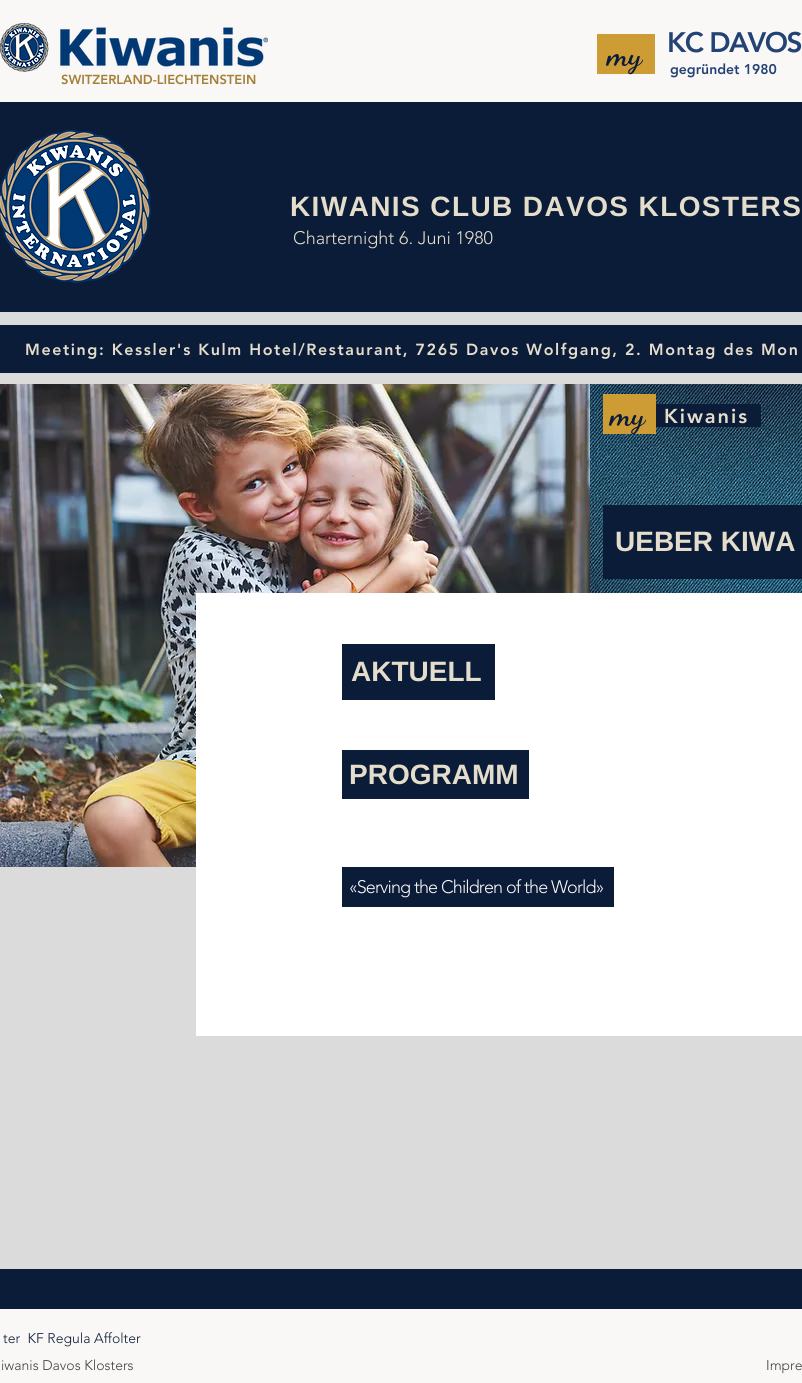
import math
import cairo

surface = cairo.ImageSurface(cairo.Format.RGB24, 802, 1383)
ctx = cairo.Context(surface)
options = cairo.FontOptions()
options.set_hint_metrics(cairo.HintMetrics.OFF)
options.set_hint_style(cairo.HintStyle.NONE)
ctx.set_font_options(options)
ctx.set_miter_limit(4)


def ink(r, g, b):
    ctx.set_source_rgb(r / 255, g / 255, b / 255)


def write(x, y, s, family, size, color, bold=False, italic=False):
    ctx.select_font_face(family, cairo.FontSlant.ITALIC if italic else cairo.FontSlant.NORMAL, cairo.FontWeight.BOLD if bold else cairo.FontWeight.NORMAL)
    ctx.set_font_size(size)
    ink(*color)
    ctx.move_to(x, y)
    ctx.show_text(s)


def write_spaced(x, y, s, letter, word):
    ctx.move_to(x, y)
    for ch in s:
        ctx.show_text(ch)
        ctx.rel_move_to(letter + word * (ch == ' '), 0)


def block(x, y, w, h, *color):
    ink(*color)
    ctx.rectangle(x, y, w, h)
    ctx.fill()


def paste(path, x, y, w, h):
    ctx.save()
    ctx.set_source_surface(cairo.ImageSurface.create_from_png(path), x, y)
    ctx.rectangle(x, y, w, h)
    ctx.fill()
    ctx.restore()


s1 = dict(family="Dancing Script", size=33, color=(11, 28, 56), bold=True)
s2 = dict(family="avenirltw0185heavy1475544 Black", size=14, color=(36, 67, 117))
s3 = dict(family="avenirltw0185heavy1475544 Black", size=13, color=(163, 129, 57))
s4 = dict(family="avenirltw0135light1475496 Light", size=18, color=(229, 221, 204))
s5 = dict(family="Liberation Sans", size=28, color=(229, 221, 204), bold=True)
s6 = dict(family="avenirltw0135light1475496 Light", size=14, color=(11, 28, 56))
s7 = dict(family="avenirltw0135light1475496 Light", size=14, color=(64, 64, 64))

ink(250, 247, 247)
ctx.paint()
paste("pic1.png", 0, 23, 268, 49)
ctx.select_font_face("avenirltw0185heavy1475544 Black")
ctx.set_font_size(28)
ink(36, 67, 117)
write_spaced(667, 52, "KC DAVOS", -1.5, 0)
block(597, 34, 58, 40, 205, 156, 53)
write(607, 65, "my", **s1)
write(670, 74, "gegründet 1980", **s2)
write(61, 84, "SWITZERLAND-LIECHTENSTEIN", **s3)
block(0, 102, 802, 210, 11, 28, 56)
paste("pic2.png", 0, 130, 151, 153)
ctx.select_font_face("Liberation Sans", cairo.FontSlant.NORMAL, cairo.FontWeight.BOLD)
ctx.set_font_size(28)
ink(229, 221, 204)
write_spaced(290, 216, "KIWANIS CLUB DAVOS KLOSTERS", 1.4, 0)
write(293, 244, "Charternight 6. Juni 1980", **s4)
block(0, 312, 802, 957, 219, 219, 219)
block(0, 325, 802, 48, 11, 28, 56)
ctx.select_font_face("avenirltw0185heavy1475544 Black")
ctx.set_font_size(16)
ink(229, 221, 204)
write_spaced(25, 355, "Meeting: Kessler's Kulm Hotel/Restaurant, 7265 Davos Wolfgang, 2. Montag des Mon", 1.6, 0)
paste("pic3.png", 0, 384, 590, 483)
paste("pic4.png", 590, 384, 212, 209)
block(603, 394, 53, 40, 205, 156, 53)
write(610, 425, "my", **s1)
block(656, 404, 105, 23, 11, 28, 56)
ctx.select_font_face("avenirltw0185heavy1475544 Black")
ctx.set_font_size(20)
ink(229, 221, 204)
write_spaced(664, 423, "Kiwanis", 2, 0)
block(603, 505, 199, 74, 11, 28, 56)
write(615, 551, "UEBER KIWA", **s5)
block(196, 593, 606, 443, 255, 255, 255)
block(342, 644, 153, 56, 11, 28, 56)
write(351, 681, "AKTUELL", **s5)
block(342, 750, 187, 49, 11, 28, 56)
write(349, 784, "PROGRAMM", **s5)
block(342, 867, 272, 40, 11, 28, 56)
ctx.select_font_face("avenirltw0135light1475496 Light")
ctx.set_font_size(18)
ink(250, 247, 247)
write_spaced(349, 893, "«Serving the Children of the World»", -0.9, 0)
block(0, 1269, 802, 40, 11, 28, 56)
write(3, 1343, "ter  KF Regula Affolter", **s6)
write(1, 1370, "iwanis Davos Klosters", **s7)
write(766, 1370, "Impre", **s7)
surface.write_to_png("screenshot.png")
